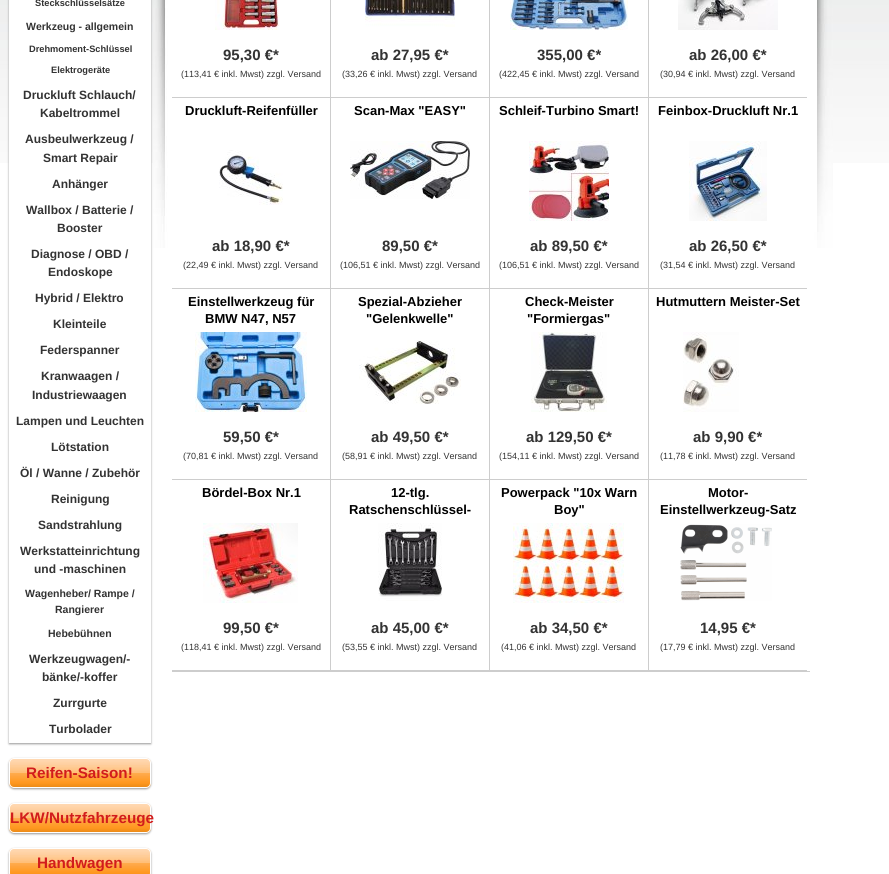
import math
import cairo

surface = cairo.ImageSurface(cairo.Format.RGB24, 889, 874)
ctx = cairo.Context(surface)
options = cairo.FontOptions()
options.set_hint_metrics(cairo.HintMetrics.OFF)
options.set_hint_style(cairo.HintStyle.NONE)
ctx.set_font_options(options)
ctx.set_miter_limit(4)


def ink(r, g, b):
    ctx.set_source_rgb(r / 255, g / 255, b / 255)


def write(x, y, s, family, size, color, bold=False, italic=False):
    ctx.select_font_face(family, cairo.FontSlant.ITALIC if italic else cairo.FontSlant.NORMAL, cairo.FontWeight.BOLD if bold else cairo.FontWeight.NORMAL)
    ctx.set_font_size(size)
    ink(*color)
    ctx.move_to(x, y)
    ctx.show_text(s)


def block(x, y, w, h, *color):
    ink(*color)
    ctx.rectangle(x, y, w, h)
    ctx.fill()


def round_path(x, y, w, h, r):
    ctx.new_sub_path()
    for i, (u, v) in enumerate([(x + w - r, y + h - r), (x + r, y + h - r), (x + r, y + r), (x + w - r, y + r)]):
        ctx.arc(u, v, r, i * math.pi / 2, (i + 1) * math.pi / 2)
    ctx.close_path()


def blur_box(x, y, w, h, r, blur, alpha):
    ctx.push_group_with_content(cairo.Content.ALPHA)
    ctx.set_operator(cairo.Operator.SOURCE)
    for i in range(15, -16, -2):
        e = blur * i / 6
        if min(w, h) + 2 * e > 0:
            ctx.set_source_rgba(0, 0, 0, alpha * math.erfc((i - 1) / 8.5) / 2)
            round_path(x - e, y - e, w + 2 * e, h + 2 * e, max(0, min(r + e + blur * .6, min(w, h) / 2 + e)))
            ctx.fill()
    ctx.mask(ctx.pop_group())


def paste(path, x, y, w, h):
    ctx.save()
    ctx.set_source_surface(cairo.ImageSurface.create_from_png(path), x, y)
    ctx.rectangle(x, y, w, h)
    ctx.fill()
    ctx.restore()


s1 = dict(family="Liberation Sans", size=9.25, color=(51, 51, 51), bold=True)
s2 = dict(family="Liberation Sans", size=10.5, color=(51, 51, 51), bold=True)
s3 = dict(family="Liberation Sans", size=12, color=(51, 51, 51), bold=True)
s4 = dict(family="Liberation Sans", size=15.25, color=(210, 28, 28), bold=True)
s5 = dict(family="Liberation Sans", size=15, color=(51, 51, 51), bold=True)
s6 = dict(family="Liberation Sans", size=9, color=(51, 51, 51))
s7 = dict(family="Liberation Sans", size=13, color=(0, 0, 0), bold=True)

ink(255, 255, 255)
ctx.paint()
paste("pic1.png", 0, 0, 889, 163)
paste("pic2.png", 153, 0, 680, 248)
ink(153, 153, 153)
blur_box(9, -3, 142, 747, 0, 1, 1)
block(9, 0, 142, 743, 255, 255, 255)
write(35, 6, "Steckschlüsselsätze", **s1)
write(26, 30, "Werkzeug - allgemein", **s2)
write(29, 52, "Drehmoment-Schlüssel", **s1)
write(51, 73, "Elektrogeräte", **s1)
write(23, 99, "Druckluft Schlauch/", **s3)
write(40, 117, "Kabeltrommel", **s3)
write(25, 143, "Ausbeulwerkzeug /", **s3)
write(43, 162, "Smart Repair", **s3)
write(52, 188, "Anhänger", **s3)
write(26, 214, "Wallbox / Batterie /", **s3)
write(57, 232, "Booster", **s3)
write(31, 258, "Diagnose / OBD /", **s3)
write(48, 276, "Endoskope", **s3)
write(35, 302, "Hybrid / Elektro", **s3)
write(53, 328, "Kleinteile", **s3)
write(40, 354, "Federspanner", **s3)
write(41, 380, "Kranwaagen /", **s3)
write(32, 399, "Industriewaagen", **s3)
write(16, 425, "Lampen und Leuchten", **s3)
write(51, 451, "Lötstation", **s3)
write(20, 477, "Öl / Wanne / Zubehör", **s3)
write(51, 503, "Reinigung", **s3)
write(38, 529, "Sandstrahlung", **s3)
write(20, 555, "Werkstatteinrichtung", **s3)
write(34, 573, "und -maschinen", **s3)
write(25, 597, "Wagenheber/ Rampe /", **s2)
write(55, 613, "Rangierer", **s2)
write(48, 637, "Hebebühnen", **s2)
write(29, 663, "Werkzeugwagen/-", **s3)
write(42, 681, "bänke/-koffer", **s3)
write(53, 707, "Zurrgurte", **s3)
write(49, 733, "Turbolader", **s3)
ink(153, 153, 153)
blur_box(9, 759, 142, 30, 5, 1, 1)
paste("pic3.png", 9, 758, 142, 30)
round_path(9.5, 758.5, 141, 29, 4.5)
ink(255, 255, 255)
ctx.set_line_width(1)
ctx.stroke()
write(26, 778, "Reifen-Saison!", **s4)
ink(153, 153, 153)
blur_box(9, 804, 142, 30, 5, 1, 1)
paste("pic3.png", 9, 803, 142, 30)
round_path(9.5, 803.5, 141, 29, 4.5)
ink(255, 255, 255)
ctx.stroke()
write(10, 823, "LKW/Nutzfahrzeuge", **s4)
ink(153, 153, 153)
blur_box(9, 849, 142, 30, 5, 1, 1)
paste("pic4.png", 9, 848, 142, 26)
round_path(9.5, 848.5, 141, 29, 4.5)
ink(255, 255, 255)
ctx.stroke()
write(37, 868, "Handwagen", **s4)
block(172, 671, 638, 1, 205, 205, 205)
block(330, 0, 1, 671, 205, 205, 205)
block(172, 97, 159, 1, 205, 205, 205)
paste("pic5.png", 215, 0, 65, 30)
write(223, 60, "95,30 €*", **s5)
write(181, 77, "(113,41 € inkl. Mwst) zzgl. Versand", **s6)
block(489, 0, 1, 671, 205, 205, 205)
block(331, 97, 159, 1, 205, 205, 205)
paste("pic6.png", 365, 0, 90, 27)
write(371, 60, "ab 27,95 €*", **s5)
write(342, 77, "(33,26 € inkl. Mwst) zzgl. Versand", **s6)
block(648, 0, 1, 671, 205, 205, 205)
block(490, 97, 317, 1, 205, 205, 205)
paste("pic7.png", 510, 0, 118, 30)
write(537, 60, "355,00 €*", **s5)
write(499, 77, "(422,45 € inkl. Mwst) zzgl. Versand", **s6)
paste("pic8.png", 678, 0, 100, 30)
write(689, 60, "ab 26,00 €*", **s5)
write(660, 77, "(30,94 € inkl. Mwst) zzgl. Versand", **s6)
block(172, 288, 635, 1, 205, 205, 205)
write(185, 115, "Druckluft-Reifenfüller", **s7)
paste("pic9.png", 219, 150, 64, 55)
write(212, 251, "ab 18,90 €*", **s5)
write(183, 268, "(22,49 € inkl. Mwst) zzgl. Versand", **s6)
write(354, 115, "Scan-Max \"EASY\"", **s7)
paste("pic10.png", 350, 141, 120, 58)
write(382, 251, "89,50 €*", **s5)
write(340, 268, "(106,51 € inkl. Mwst) zzgl. Versand", **s6)
write(499, 115, "Schleif-Turbino Smart!", **s7)
paste("pic11.png", 529, 141, 80, 80)
write(530, 251, "ab 89,50 €*", **s5)
write(499, 268, "(106,51 € inkl. Mwst) zzgl. Versand", **s6)
write(658, 115, "Feinbox-Druckluft Nr.1", **s7)
paste("pic12.png", 689, 141, 78, 80)
write(689, 251, "ab 26,50 €*", **s5)
write(660, 268, "(31,54 € inkl. Mwst) zzgl. Versand", **s6)
block(172, 479, 635, 1, 205, 205, 205)
write(188, 306, "Einstellwerkzeug für", **s7)
write(205, 323, "BMW N47, N57", **s7)
paste("pic13.png", 195, 332, 112, 80)
write(223, 442, "59,50 €*", **s5)
write(183, 459, "(70,81 € inkl. Mwst) zzgl. Versand", **s6)
write(358, 306, "Spezial-Abzieher", **s7)
write(366, 323, "\"Gelenkwelle\"", **s7)
paste("pic14.png", 359, 340, 102, 64)
write(371, 442, "ab 49,50 €*", **s5)
write(342, 459, "(58,91 € inkl. Mwst) zzgl. Versand", **s6)
write(525, 306, "Check-Meister", **s7)
write(527, 323, "\"Formiergas\"", **s7)
paste("pic15.png", 531, 332, 76, 80)
write(526, 442, "ab 129,50 €*", **s5)
write(499, 459, "(154,11 € inkl. Mwst) zzgl. Versand", **s6)
write(656, 306, "Hutmuttern Meister-Set", **s7)
paste("pic16.png", 683, 332, 56, 80)
write(693, 442, "ab 9,90 €*", **s5)
write(660, 459, "(11,78 € inkl. Mwst) zzgl. Versand", **s6)
block(172, 670, 635, 1, 205, 205, 205)
write(202, 497, "Bördel-Box Nr.1", **s7)
paste("pic17.png", 203, 523, 95, 80)
write(223, 633, "99,50 €*", **s5)
write(181, 650, "(118,41 € inkl. Mwst) zzgl. Versand", **s6)
write(391, 497, "12-tlg.", **s7)
write(349, 514, "Ratschenschlüssel-", **s7)
paste("pic18.png", 378, 523, 64, 78)
write(371, 633, "ab 45,00 €*", **s5)
write(342, 650, "(53,55 € inkl. Mwst) zzgl. Versand", **s6)
write(501, 497, "Powerpack \"10x Warn", **s7)
write(554, 514, "Boy\"", **s7)
paste("pic19.png", 513, 523, 111, 80)
write(530, 633, "ab 34,50 €*", **s5)
write(501, 650, "(41,06 € inkl. Mwst) zzgl. Versand", **s6)
write(708, 497, "Motor-", **s7)
write(660, 514, "Einstellwerkzeug-Satz", **s7)
paste("pic20.png", 680, 524, 92, 77)
write(700, 633, "14,95 €*", **s5)
write(660, 650, "(17,79 € inkl. Mwst) zzgl. Versand", **s6)
surface.write_to_png("screenshot.png")
